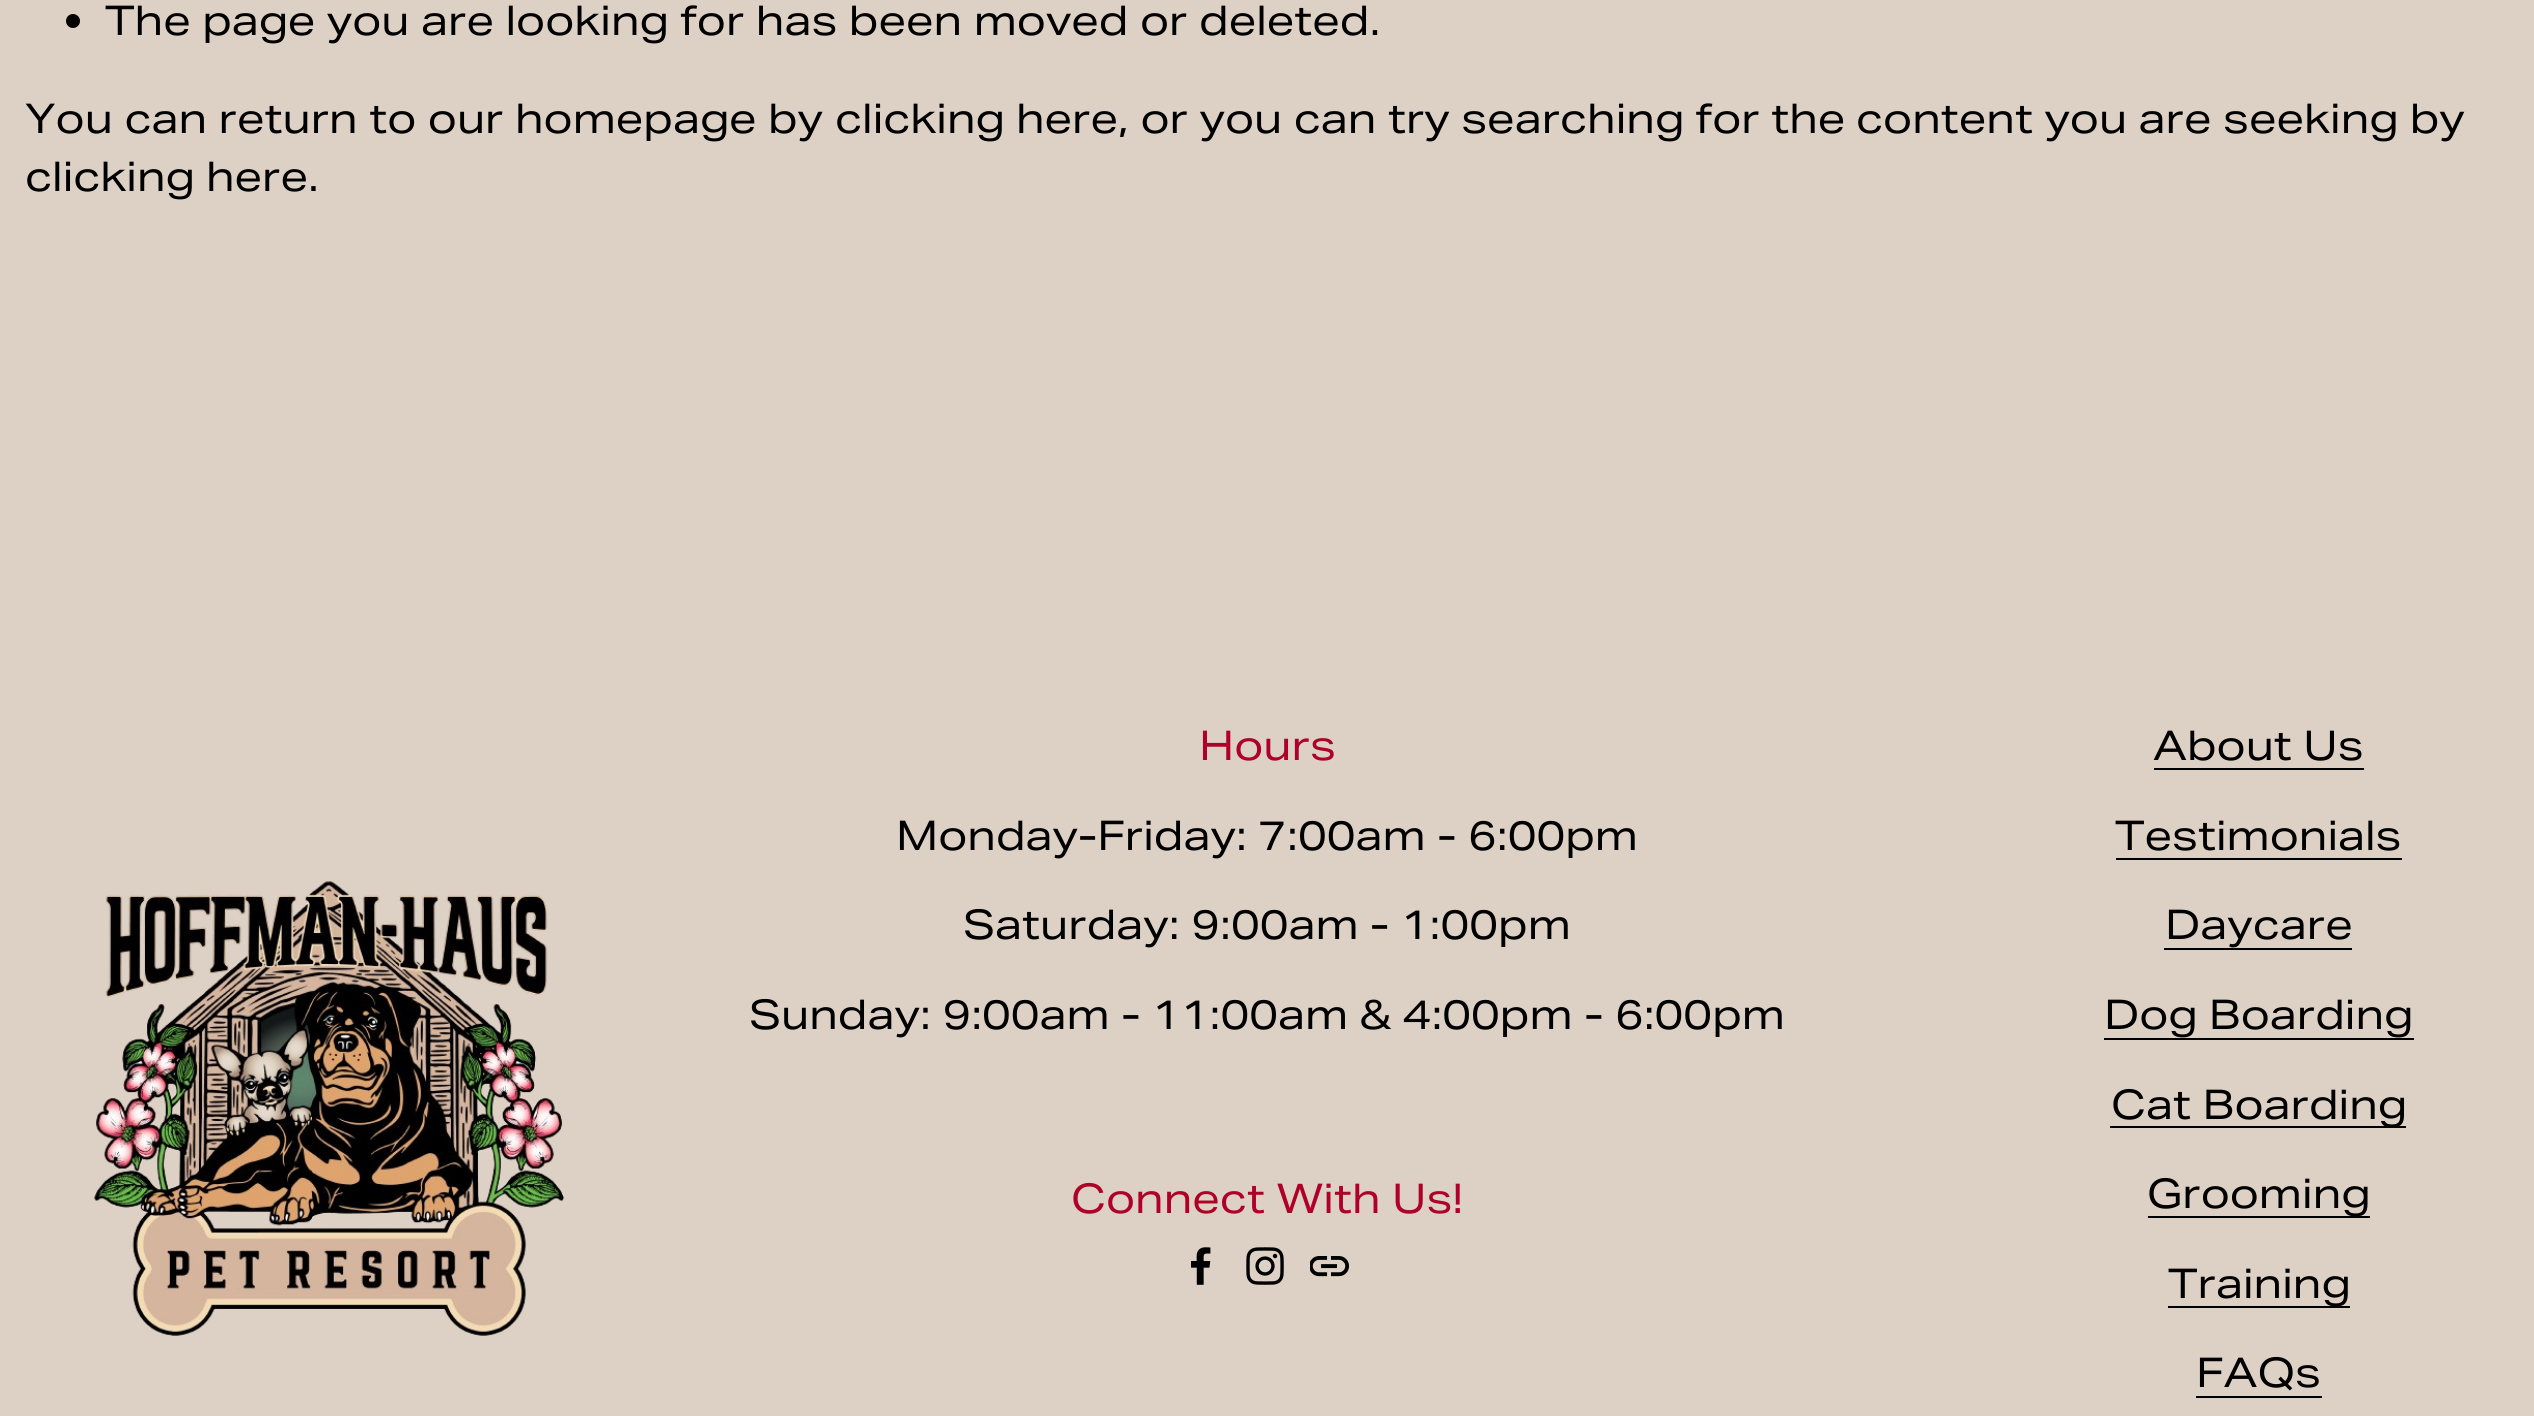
import math
import cairo

surface = cairo.ImageSurface(cairo.Format.RGB24, 2534, 1416)
ctx = cairo.Context(surface)
options = cairo.FontOptions()
options.set_hint_metrics(cairo.HintMetrics.OFF)
options.set_hint_style(cairo.HintStyle.NONE)
ctx.set_font_options(options)
ctx.set_miter_limit(4)


def ink(r, g, b):
    ctx.set_source_rgb(r / 255, g / 255, b / 255)


def write(x, y, s, family, size, color, bold=False, italic=False):
    ctx.select_font_face(family, cairo.FontSlant.ITALIC if italic else cairo.FontSlant.NORMAL, cairo.FontWeight.BOLD if bold else cairo.FontWeight.NORMAL)
    ctx.set_font_size(size)
    ink(*color)
    ctx.move_to(x, y)
    ctx.show_text(s)


def block(x, y, w, h, *color):
    ink(*color)
    ctx.rectangle(x, y, w, h)
    ctx.fill()


def paste(path, x, y, w, h):
    ctx.save()
    ctx.set_source_surface(cairo.ImageSurface.create_from_png(path), x, y)
    ctx.rectangle(x, y, w, h)
    ctx.fill()
    ctx.restore()


s1 = dict(family="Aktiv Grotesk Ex", size=41.1, color=(0, 0, 0))
s2 = dict(family="Aktiv Grotesk Ex", size=41.1, color=(174, 0, 40))

ink(221, 208, 196)
ctx.paint()
ink(0, 0, 0)
ctx.arc(73, 21, 7, 0, 2 * math.pi)
ctx.fill()
write(105, 35, "The page you are looking for has been moved or deleted.", **s1)
write(25, 133, "You can return to our homepage by", **s1)
write(835, 133, "clicking here, or you can try searching for the", **s1)
write(1856, 133, "content you are seeking by", **s1)
write(25, 191, "clicking here.", **s1)
paste("pic1.png", 94, 881, 471, 455)
write(1199, 760, "Hours", **s2)
write(896, 850, "Monday-Friday: 7:00am - 6:00pm", **s1)
write(963, 939, "Saturday: 9:00am - 1:00pm", **s1)
write(749, 1029, "Sunday: 9:00am - 11:00am & 4:00pm - 6:00pm", **s1)
write(2153, 760, "About Us", **s1)
block(2154, 768, 210, 2, 0, 0, 0)
write(2115, 850, "Testimonials", **s1)
block(2116, 858, 286, 2, 0, 0, 0)
write(2165, 939, "Daycare", **s1)
block(2164, 948, 188, 2, 0, 0, 0)
write(2104, 1029, "Dog Boarding", **s1)
block(2104, 1038, 310, 2, 0, 0, 0)
block(2110, 1126, 296, 2, 0, 0, 0)
write(2111, 1119, "Cat Boarding", **s1)
block(2148, 1216, 222, 2, 0, 0, 0)
write(2147, 1208, "Grooming", **s1)
block(2168, 1306, 182, 2, 0, 0, 0)
write(2168, 1298, "Training", **s1)
write(2196, 1387, "FAQs", **s1)
block(2196, 1396, 126, 2, 0, 0, 0)
write(1071, 1213, "Connect With Us!", **s2)
paste("pic2.png", 1191, 1247, 20, 38)
paste("pic3.png", 1246, 1247, 38, 38)
paste("pic4.png", 1310, 1256, 39, 21)
surface.write_to_png("screenshot.png")
